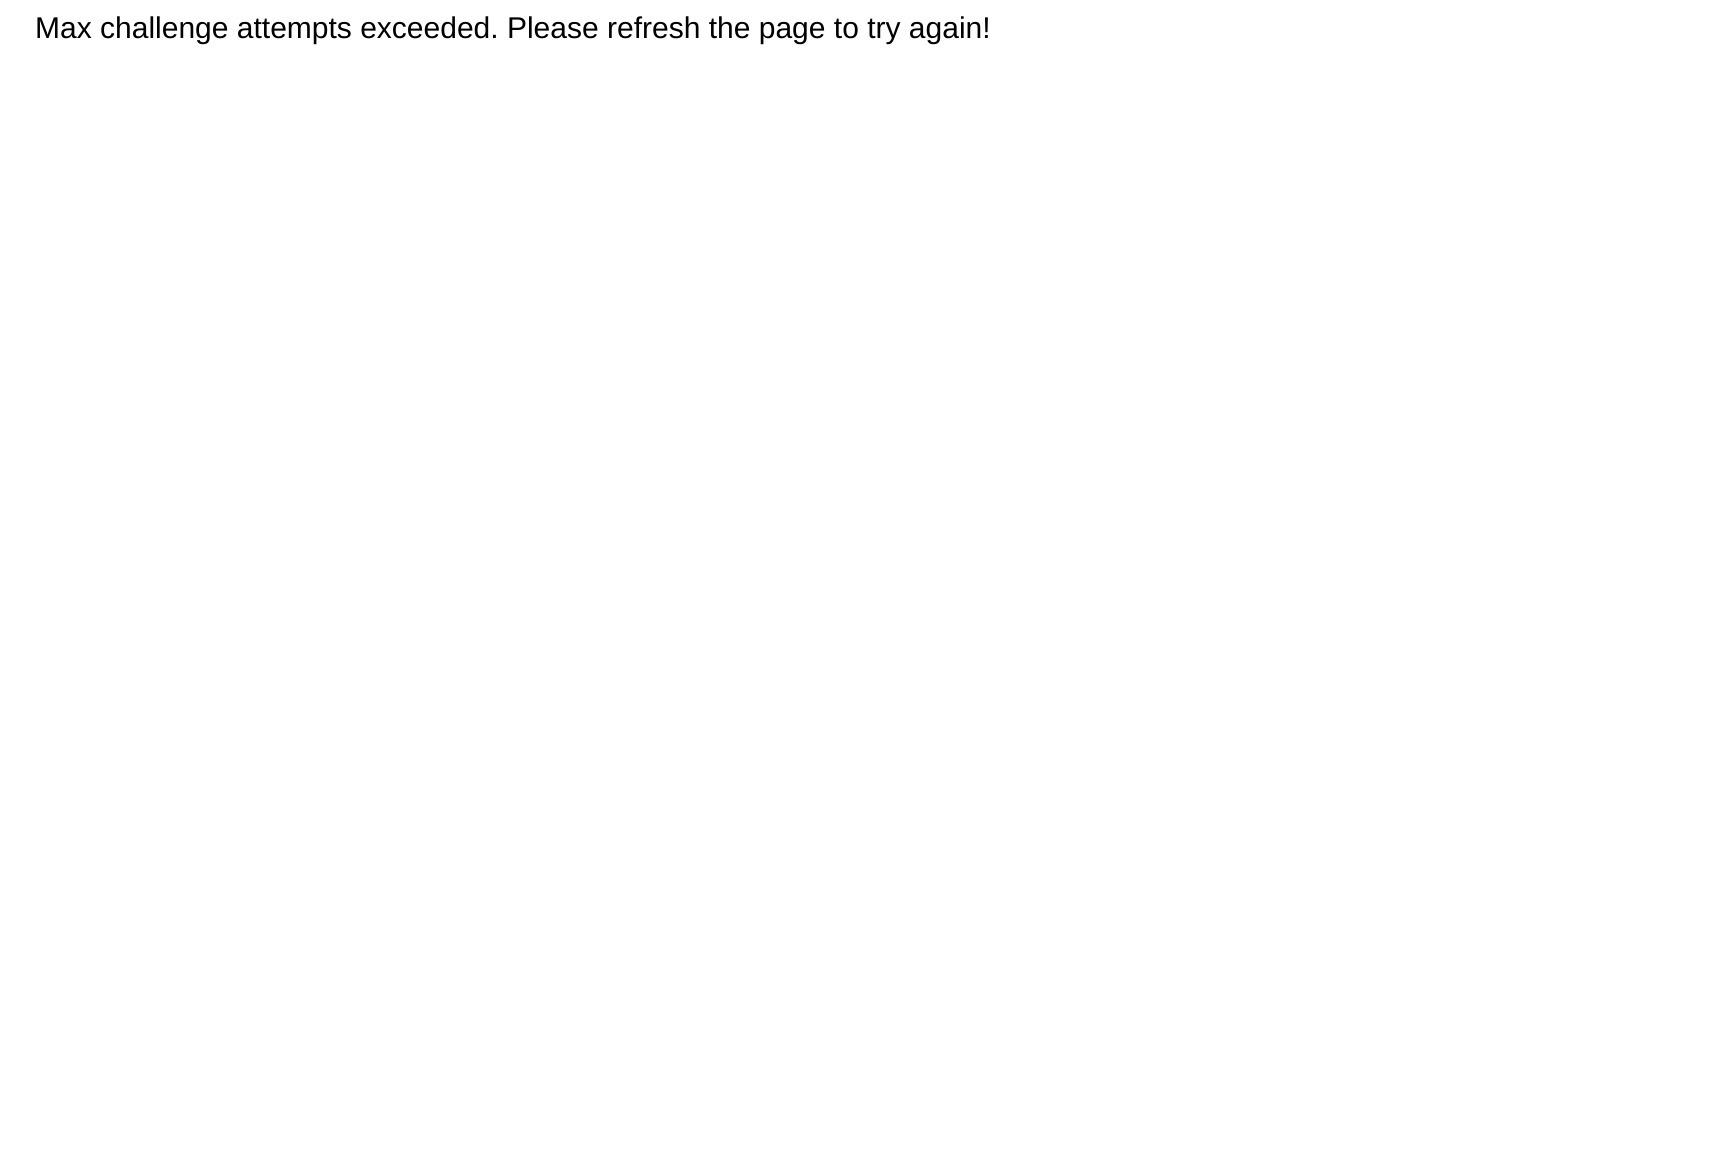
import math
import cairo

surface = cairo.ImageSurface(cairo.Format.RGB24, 1722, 1172)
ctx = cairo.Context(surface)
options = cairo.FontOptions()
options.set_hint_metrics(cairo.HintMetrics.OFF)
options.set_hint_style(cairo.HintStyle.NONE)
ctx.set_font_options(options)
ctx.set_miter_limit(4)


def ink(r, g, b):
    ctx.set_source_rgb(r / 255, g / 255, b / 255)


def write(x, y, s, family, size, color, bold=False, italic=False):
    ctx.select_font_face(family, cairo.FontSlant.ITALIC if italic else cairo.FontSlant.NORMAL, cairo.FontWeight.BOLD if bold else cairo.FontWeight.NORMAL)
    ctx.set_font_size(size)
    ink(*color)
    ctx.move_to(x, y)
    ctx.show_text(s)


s1 = dict(family="Liberation Sans", size=30, color=(0, 0, 0))

ink(255, 255, 255)
ctx.paint()
write(35, 38, "Max challenge attempts exceeded. Please refresh the page to try again!", **s1)
surface.write_to_png("screenshot.png")
